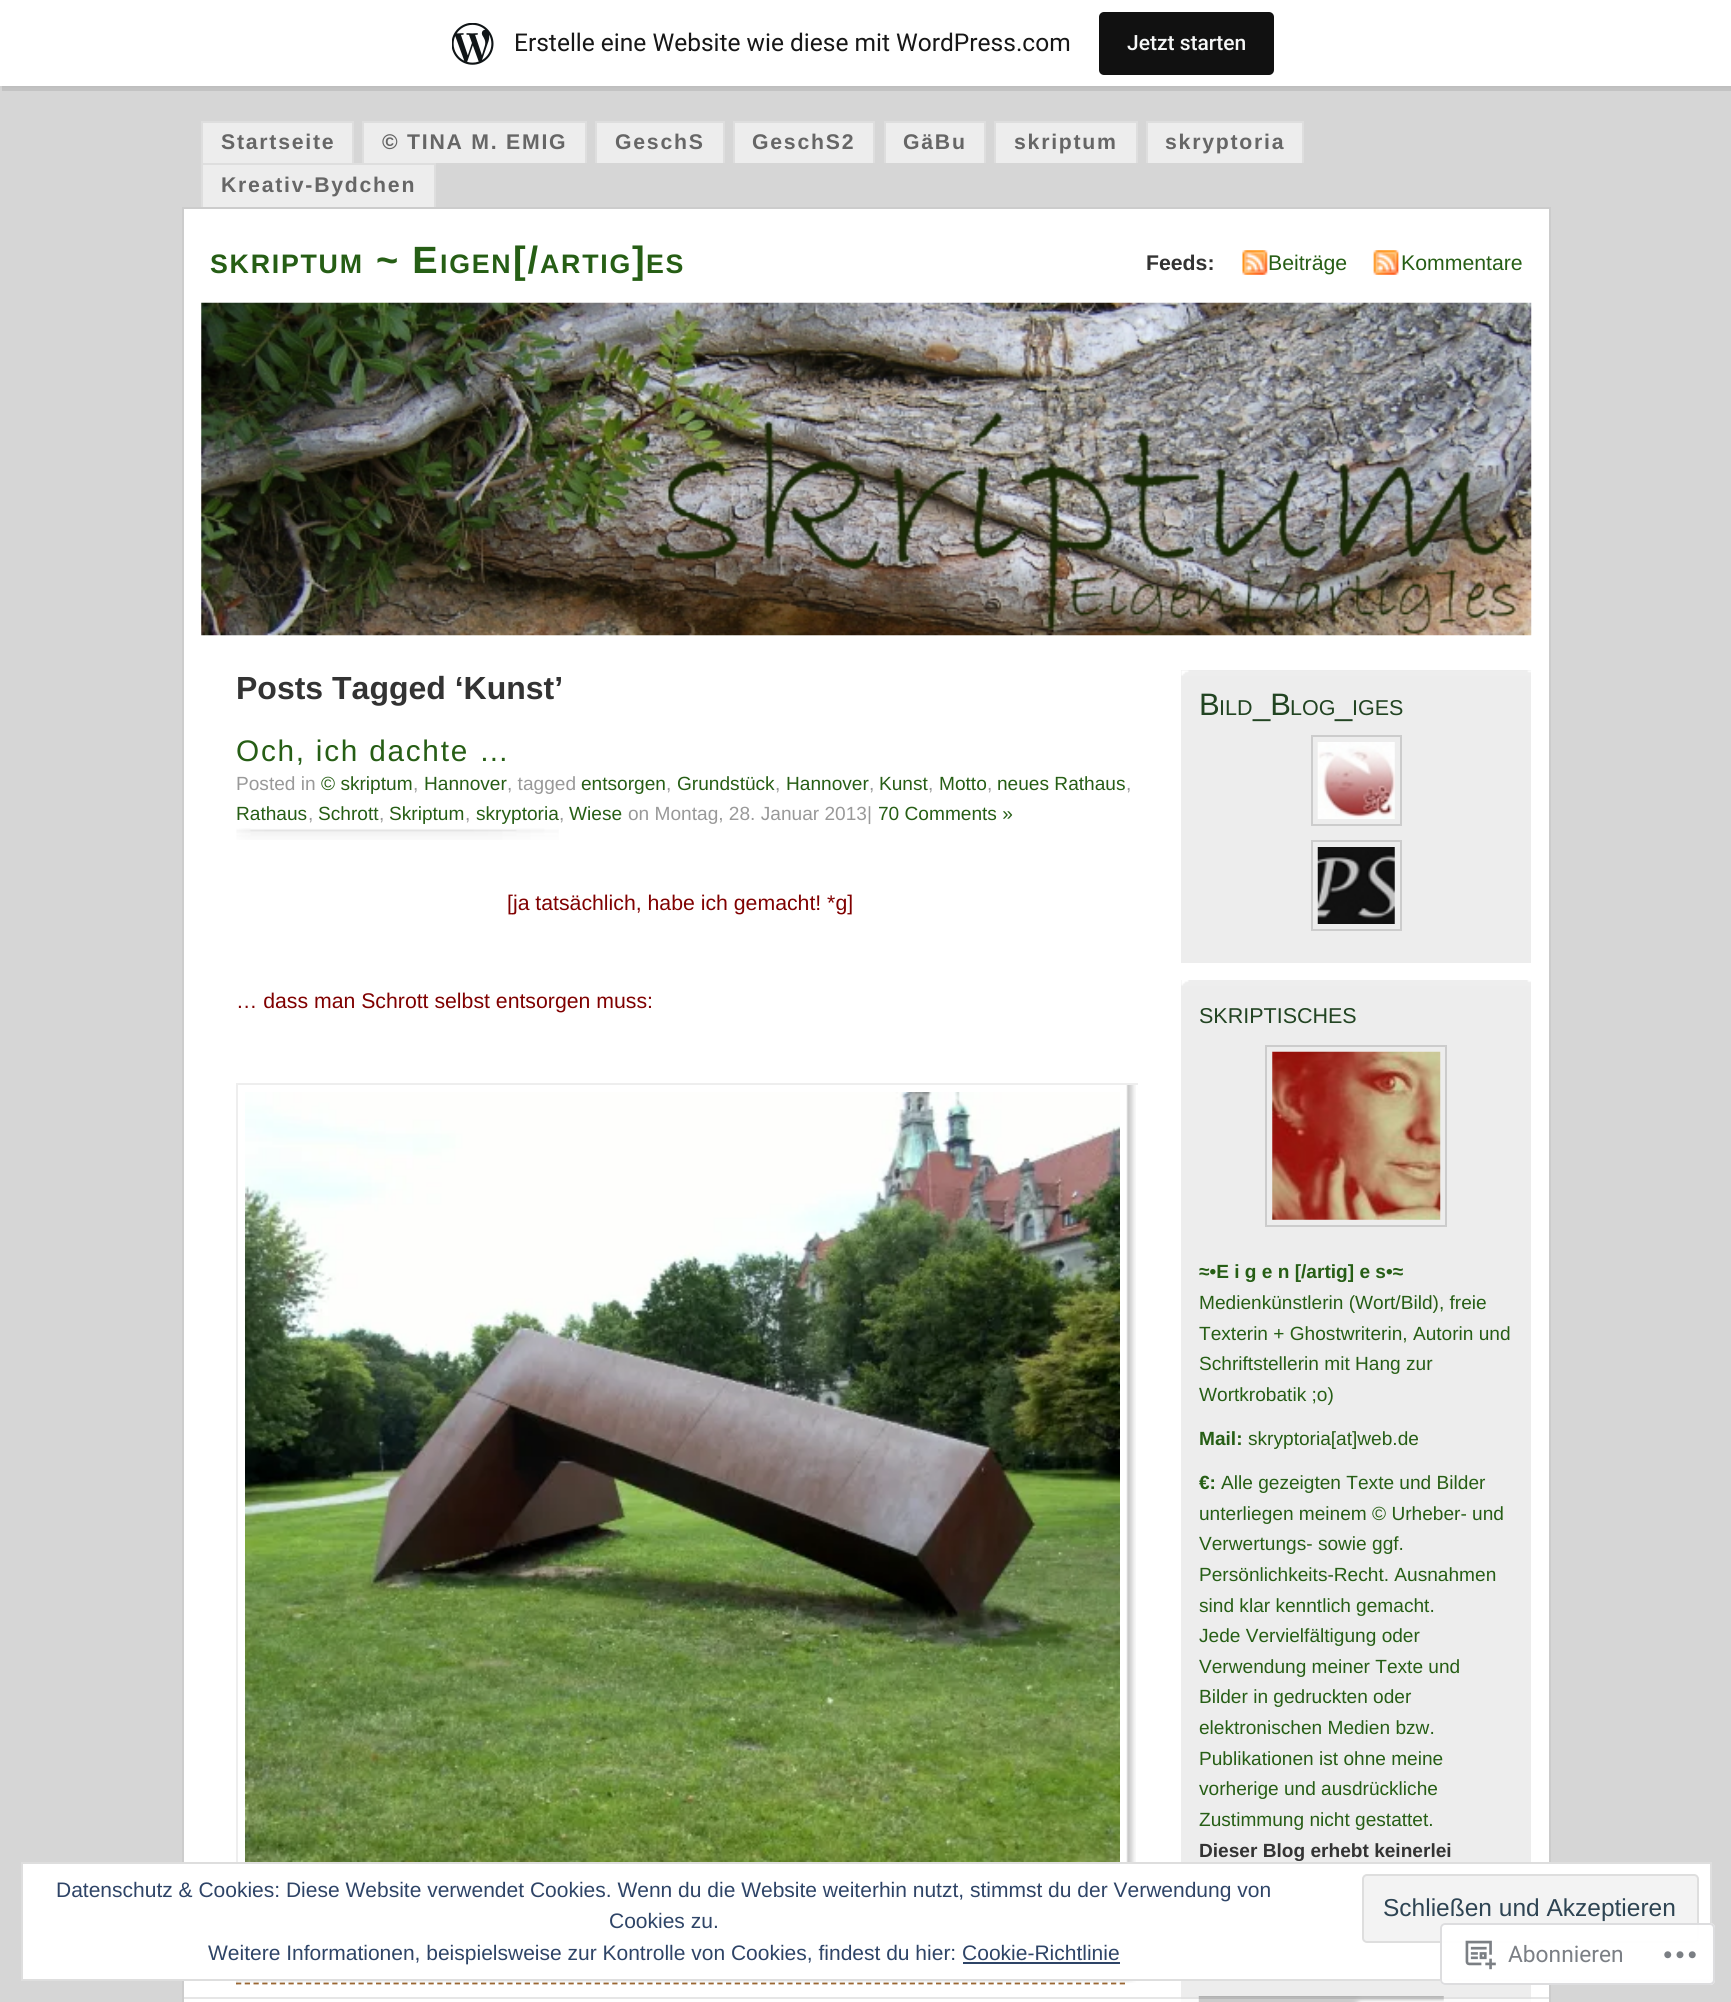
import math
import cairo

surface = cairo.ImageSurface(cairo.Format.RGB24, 1731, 2002)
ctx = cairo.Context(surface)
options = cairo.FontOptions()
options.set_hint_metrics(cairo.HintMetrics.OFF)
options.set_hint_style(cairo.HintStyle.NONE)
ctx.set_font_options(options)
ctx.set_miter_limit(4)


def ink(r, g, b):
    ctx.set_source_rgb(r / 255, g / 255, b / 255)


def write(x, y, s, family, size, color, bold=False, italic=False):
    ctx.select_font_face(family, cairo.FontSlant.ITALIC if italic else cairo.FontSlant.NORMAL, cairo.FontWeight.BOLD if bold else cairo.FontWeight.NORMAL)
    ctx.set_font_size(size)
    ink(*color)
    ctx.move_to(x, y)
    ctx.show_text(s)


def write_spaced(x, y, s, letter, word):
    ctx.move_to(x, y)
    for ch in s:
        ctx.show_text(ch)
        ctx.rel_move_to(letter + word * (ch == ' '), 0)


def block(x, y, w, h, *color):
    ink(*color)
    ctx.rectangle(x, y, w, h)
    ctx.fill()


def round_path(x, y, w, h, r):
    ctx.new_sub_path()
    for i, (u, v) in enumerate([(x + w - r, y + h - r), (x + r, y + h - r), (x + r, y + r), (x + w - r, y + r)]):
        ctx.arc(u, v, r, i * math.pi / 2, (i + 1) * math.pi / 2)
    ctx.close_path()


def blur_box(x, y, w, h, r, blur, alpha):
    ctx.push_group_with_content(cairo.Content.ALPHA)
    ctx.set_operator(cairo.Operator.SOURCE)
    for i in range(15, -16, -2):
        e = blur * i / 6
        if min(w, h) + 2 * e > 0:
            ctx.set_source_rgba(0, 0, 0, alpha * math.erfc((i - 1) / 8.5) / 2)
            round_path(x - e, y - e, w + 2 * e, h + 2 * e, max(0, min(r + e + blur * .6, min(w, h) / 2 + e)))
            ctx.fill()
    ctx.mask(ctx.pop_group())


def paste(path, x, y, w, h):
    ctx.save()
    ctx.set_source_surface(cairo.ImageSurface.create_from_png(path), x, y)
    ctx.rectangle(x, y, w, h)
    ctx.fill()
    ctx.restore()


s1 = dict(family="Roboto", size=24.5, color=(23, 23, 23))
s2 = dict(family="Roboto Medium", size=21, color=(246, 247, 247))
s3 = dict(family="Liberation Sans", size=21.25, color=(51, 51, 51), bold=True)
s4 = dict(family="Liberation Sans", size=21.25, color=(38, 94, 21))
s5 = dict(family="Liberation Sans", size=32, color=(51, 51, 51), bold=True)
s6 = dict(family="Liberation Sans", size=19.1, color=(153, 153, 153))
s7 = dict(family="Liberation Sans", size=19.1, color=(38, 94, 21))
s8 = dict(family="Liberation Sans", size=21.25, color=(128, 0, 0))
s9 = dict(family="Liberation Sans", size=31, color=(34, 68, 34))
s10 = dict(family="Liberation Sans", size=21.5, color=(34, 68, 34))
s11 = dict(family="Liberation Sans", size=19.1, color=(38, 94, 21), bold=True)
s12 = dict(family="Liberation Sans", size=19.1, color=(51, 51, 51), bold=True)
s13 = dict(family="Liberation Sans", size=21, color=(46, 68, 103))
s14 = dict(family="Liberation Sans", size=24.5, color=(46, 68, 83))
s15 = dict(family="Roboto", size=22.75, color=(123, 127, 133))

ink(214, 214, 214)
ctx.paint()
ink(0, 0, 0)
blur_box(0, 2, 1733, 86, 0, 2, 0.05)
ctx.set_source_rgba(0, 0, 0, 0.08)
ctx.new_path()
ctx.move_to(2, 86)
ctx.line_to(2, 91)
ctx.line_to(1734, 91)
ctx.line_to(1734, 5)
ctx.line_to(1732, 5)
ctx.line_to(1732, 86)
ctx.close_path()
ctx.fill()
block(0, 0, 1731, 86, 255, 255, 255)
paste("pic1.png", 452, 23, 42, 42)
write(514, 51, "Erstelle eine Website wie diese mit WordPress.com", **s1)
ink(17, 17, 17)
round_path(1099, 12, 175, 63, 5)
ctx.fill()
write(1127, 50, "Jetzt starten", **s2)
block(203, 123, 149, 40, 237, 237, 237)
block(201, 121, 153, 2, 222, 222, 222)
block(352, 121, 2, 42, 222, 222, 222)
block(201, 121, 2, 42, 222, 222, 222)
ctx.select_font_face("Liberation Sans", cairo.FontSlant.NORMAL, cairo.FontWeight.BOLD)
ctx.set_font_size(21.25)
ink(102, 102, 102)
write_spaced(221, 149, "Startseite", 1.75, 0)
block(364, 123, 221, 40, 237, 237, 237)
block(362, 121, 224, 2, 222, 222, 222)
block(585, 121, 2, 42, 222, 222, 222)
block(362, 121, 2, 42, 222, 222, 222)
ink(102, 102, 102)
write_spaced(382, 149, "© TINA M. EMIG", 1.75, 0)
block(597, 123, 126, 40, 237, 237, 237)
block(595, 121, 130, 2, 222, 222, 222)
block(723, 121, 2, 42, 222, 222, 222)
block(595, 121, 2, 42, 222, 222, 222)
ink(102, 102, 102)
write_spaced(615, 149, "GeschS", 1.75, 0)
block(735, 123, 138, 40, 237, 237, 237)
block(733, 121, 142, 2, 222, 222, 222)
block(873, 121, 2, 42, 222, 222, 222)
block(733, 121, 2, 42, 222, 222, 222)
ink(102, 102, 102)
write_spaced(752, 149, "GeschS2", 1.75, 0)
block(886, 123, 98, 40, 237, 237, 237)
block(884, 121, 101, 2, 222, 222, 222)
block(984, 121, 2, 42, 222, 222, 222)
block(884, 121, 2, 42, 222, 222, 222)
ink(102, 102, 102)
write_spaced(903, 149, "GäBu", 1.75, 0)
block(996, 123, 140, 40, 237, 237, 237)
block(994, 121, 144, 2, 222, 222, 222)
block(1136, 121, 2, 42, 222, 222, 222)
block(994, 121, 2, 42, 222, 222, 222)
ink(102, 102, 102)
write_spaced(1014, 149, "skriptum", 1.75, 0)
block(1148, 123, 154, 40, 237, 237, 237)
block(1146, 121, 158, 2, 222, 222, 222)
block(1302, 121, 2, 42, 222, 222, 222)
block(1146, 121, 2, 42, 222, 222, 222)
ink(102, 102, 102)
write_spaced(1165, 149, "skryptoria", 1.75, 0)
block(203, 165, 231, 42, 237, 237, 237)
block(201, 163, 235, 2, 222, 222, 222)
block(434, 163, 2, 44, 222, 222, 222)
block(201, 163, 2, 44, 222, 222, 222)
ink(102, 102, 102)
write_spaced(221, 192, "Kreativ-Bydchen", 1.75, 0)
ink(255, 255, 255)
ctx.rectangle(183, 208, 1367, 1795)
ctx.fill_preserve()
ink(204, 204, 204)
ctx.stroke()
ctx.set_font_size(26.75)
ink(38, 94, 21)
write_spaced(210, 273, "SKRIPTUM", 1.75, 0)
ctx.set_font_size(38)
write_spaced(376, 273, "~ E", 1.75, 0)
ctx.set_font_size(26.75)
write_spaced(440, 273, "IGEN", 1.75, 0)
ctx.set_font_size(38)
write_spaced(513, 273, "[/", 1.75, 0)
ctx.set_font_size(26.75)
write_spaced(540, 273, "ARTIG", 1.75, 0)
ctx.set_font_size(38)
write_spaced(632, 273, "]", 1.75, 0)
ctx.set_font_size(26.75)
write_spaced(646, 273, "ES", 1.75, 0)
write(1146, 270, "Feeds:", **s3)
paste("pic2.png", 1242, 250, 26, 25)
write(1268, 270, "Beiträge", **s4)
paste("pic3.png", 1373, 250, 26, 25)
write(1401, 270, "Kommentare", **s4)
paste("pic4.png", 201, 302, 1331, 334)
write(236, 699, "Posts Tagged ‘Kunst’", **s5)
ctx.select_font_face("Liberation Sans")
ctx.set_font_size(29.75)
ink(38, 94, 21)
write_spaced(236, 761, "Och, ich dachte …", 1.75, 0)
paste("pic5.png", 236, 828, 323, 12)
write(236, 790, "Posted in", **s6)
write(321, 790, "© skriptum", **s7)
write(413, 790, ",", **s6)
write(424, 790, "Hannover", **s7)
write(507, 790, ", tagged", **s6)
write(581, 790, "entsorgen", **s7)
write(666, 790, ",", **s6)
write(677, 790, "Grundstück", **s7)
write(775, 790, ",", **s6)
write(786, 790, "Hannover", **s7)
write(869, 790, ",", **s6)
write(879, 790, "Kunst", **s7)
write(928, 790, ",", **s6)
write(939, 790, "Motto", **s7)
write(987, 790, ",", **s6)
write(997, 790, "neues Rathaus", **s7)
write(1126, 790, ",", **s6)
write(236, 820, "Rathaus", **s7)
write(308, 820, ",", **s6)
write(318, 820, "Schrott", **s7)
write(379, 820, ",", **s6)
write(389, 820, "Skriptum", **s7)
write(465, 820, ",", **s6)
write(476, 820, "skryptoria", **s7)
write(559, 820, ",", **s6)
write(569, 820, "Wiese", **s7)
write(628, 820, "on Montag, 28. Januar 2013|", **s6)
write(878, 820, "70 Comments »", **s7)
write(507, 910, "[ja tatsächlich, habe ich gemacht! *g]", **s8)
write(236, 1008, "… dass man Schrott selbst entsorgen muss:", **s8)
paste("pic6.png", 238, 1085, 898, 898)
block(236, 1083, 902, 2, 238, 238, 238)
block(236, 1083, 2, 902, 238, 238, 238)
ctx.new_path()
ctx.move_to(236, 1983.5)
ctx.line_to(1125, 1983.5)
ink(153, 102, 51)
ctx.set_line_width(1.8)
ctx.set_dash([5.25, 3.5])
ctx.stroke()
block(1181, 670, 350, 293, 237, 237, 237)
paste("pic7.png", 1181, 670, 350, 6)
write(1199, 715, "B", **s9)
write(1219, 715, "ILD", **s10)
write(1253, 715, "_B", **s9)
write(1290, 715, "LOG", **s10)
write(1352, 715, "IGES", **s10)
write(1335, 715, "_", **s9)
ctx.rectangle(1312, 736, 89, 89)
ink(204, 204, 204)
ctx.set_line_width(2)
ctx.set_dash([])
ctx.stroke()
paste("pic8.png", 1317, 742, 78, 77)
ctx.rectangle(1312, 841, 89, 89)
ctx.stroke()
paste("pic9.png", 1317, 847, 78, 77)
block(1181, 980, 350, 882, 237, 237, 237)
paste("pic10.png", 1181, 980, 350, 6)
write(1199, 1023, "SKRIPTISCHES", **s10)
ctx.rectangle(1266, 1046, 180, 180)
ink(204, 204, 204)
ctx.stroke()
paste("pic11.png", 1272, 1051, 169, 169)
write(1199, 1278, "≈•E i g e n [/artig] e s•≈", **s11)
write(1199, 1309, "Medienkünstlerin (Wort/Bild), freie", **s7)
write(1199, 1340, "Texterin + Ghostwriterin, Autorin und", **s7)
write(1199, 1370, "Schriftstellerin mit Hang zur", **s7)
write(1199, 1401, "Wortkrobatik ;o)", **s7)
write(1199, 1445, "Mail:", **s11)
write(1248, 1445, "skryptoria[at]web.de", **s7)
write(1199, 1489, "€:", **s11)
write(1221, 1489, "Alle gezeigten Texte und Bilder", **s7)
write(1199, 1520, "unterliegen meinem © Urheber- und", **s7)
write(1199, 1550, "Verwertungs- sowie ggf.", **s7)
write(1199, 1581, "Persönlichkeits-Recht. Ausnahmen", **s7)
write(1199, 1612, "sind klar kenntlich gemacht.", **s7)
write(1199, 1642, "Jede Vervielfältigung oder", **s7)
write(1199, 1673, "Verwendung meiner Texte und", **s7)
write(1199, 1703, "Bilder in gedruckten oder", **s7)
write(1199, 1734, "elektronischen Medien bzw.", **s7)
write(1199, 1765, "Publikationen ist ohne meine", **s7)
write(1199, 1795, "vorherige und ausdrückliche", **s7)
write(1199, 1826, "Zustimmung nicht gestattet.", **s7)
write(1199, 1857, "Dieser Blog erhebt keinerlei", **s12)
block(1181, 1981, 350, 21, 237, 237, 237)
paste("pic12.png", 1198, 1996, 246, 6)
ink(255, 255, 255)
ctx.rectangle(22, 1863, 1689, 117)
ctx.fill_preserve()
ink(222, 222, 222)
ctx.stroke()
write(56, 1897, "Datenschutz & Cookies: Diese Website verwendet Cookies. Wenn du die Website weiterhin nutzt, stimmst du der Verwendung von", **s13)
write(609, 1928, "Cookies zu.", **s13)
ink(243, 243, 243)
round_path(1363, 1875, 335, 67, 4)
ctx.fill_preserve()
ink(222, 222, 222)
ctx.stroke()
write(1383, 1916, "Schließen und Akzeptieren", **s14)
write(208, 1960, "Weitere Informationen, beispielsweise zur Kontrolle von Cookies, findest du hier: Cookie-Richtlinie", **s13)
block(963, 1962, 157, 2, 46, 68, 103)
ctx.set_source_rgba(1, 1, 1, 0.98)
round_path(1440, 1923, 275, 62, 5)
ctx.fill()
round_path(1441, 1924, 273, 60, 4)
ctx.set_source_rgba(0.863, 0.863, 0.871, 0.98)
ctx.stroke()
paste("pic13.png", 1465, 1940, 31, 30)
write(1508, 1962, "Abonnieren", **s15)
paste("pic14.png", 1664, 1951, 32, 8)
ctx.set_source_rgba(1, 1, 1, 0.8)
ctx.rectangle(1181, 1997, 350, 5)
ctx.fill()
ctx.set_source_rgba(0, 0, 0, 0.1)
ctx.rectangle(184, 1997, 1365, 2)
ctx.fill()
surface.write_to_png("screenshot.png")
